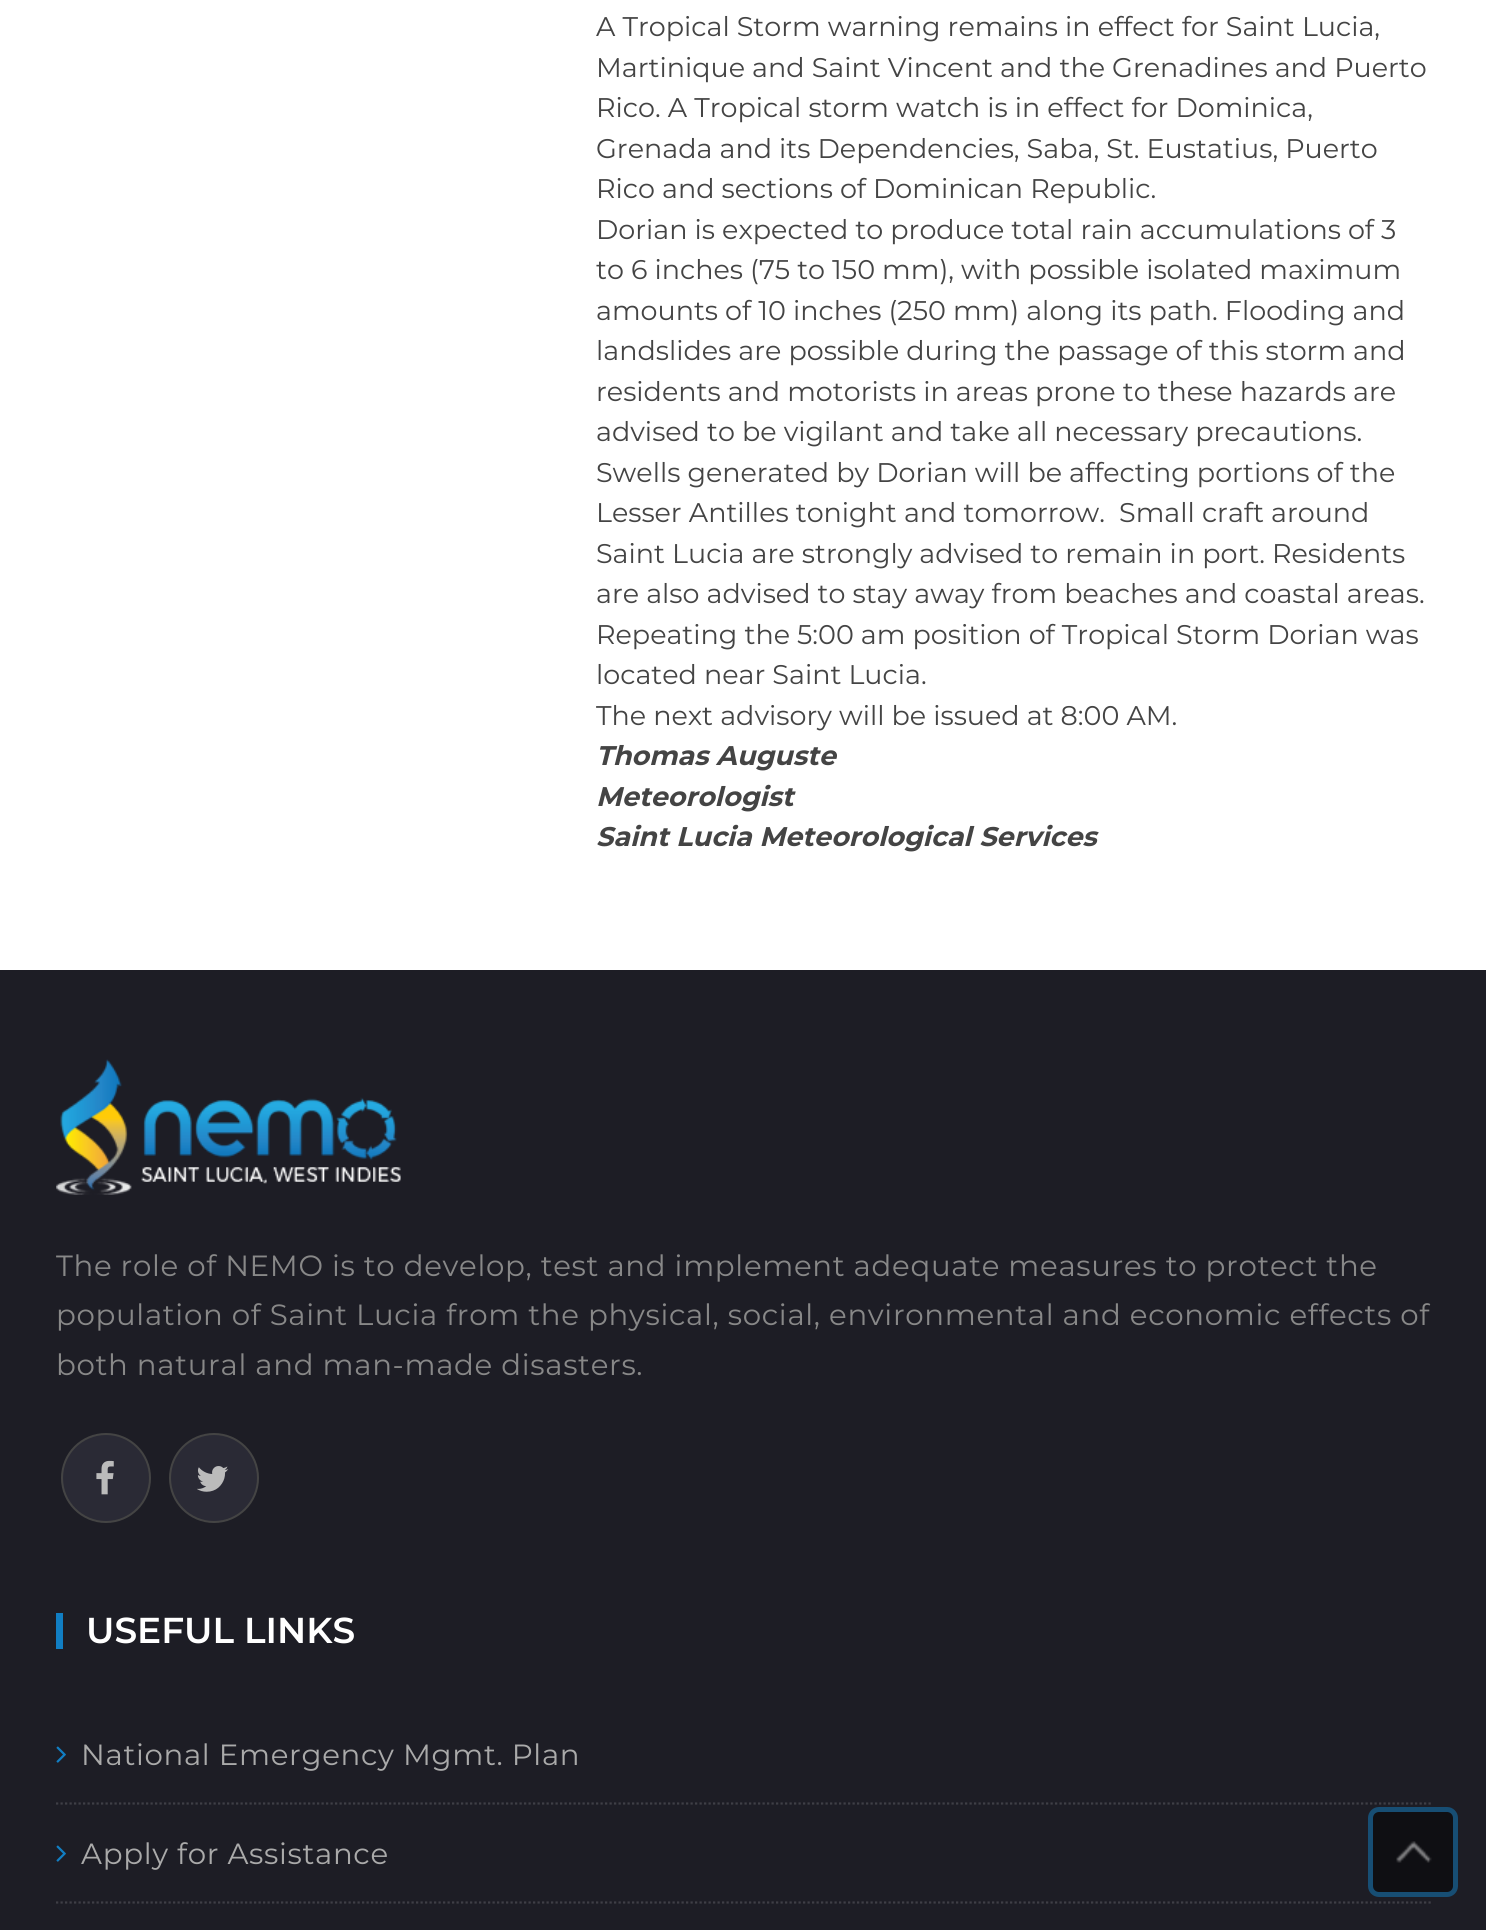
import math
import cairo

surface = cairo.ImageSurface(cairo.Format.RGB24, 1486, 1930)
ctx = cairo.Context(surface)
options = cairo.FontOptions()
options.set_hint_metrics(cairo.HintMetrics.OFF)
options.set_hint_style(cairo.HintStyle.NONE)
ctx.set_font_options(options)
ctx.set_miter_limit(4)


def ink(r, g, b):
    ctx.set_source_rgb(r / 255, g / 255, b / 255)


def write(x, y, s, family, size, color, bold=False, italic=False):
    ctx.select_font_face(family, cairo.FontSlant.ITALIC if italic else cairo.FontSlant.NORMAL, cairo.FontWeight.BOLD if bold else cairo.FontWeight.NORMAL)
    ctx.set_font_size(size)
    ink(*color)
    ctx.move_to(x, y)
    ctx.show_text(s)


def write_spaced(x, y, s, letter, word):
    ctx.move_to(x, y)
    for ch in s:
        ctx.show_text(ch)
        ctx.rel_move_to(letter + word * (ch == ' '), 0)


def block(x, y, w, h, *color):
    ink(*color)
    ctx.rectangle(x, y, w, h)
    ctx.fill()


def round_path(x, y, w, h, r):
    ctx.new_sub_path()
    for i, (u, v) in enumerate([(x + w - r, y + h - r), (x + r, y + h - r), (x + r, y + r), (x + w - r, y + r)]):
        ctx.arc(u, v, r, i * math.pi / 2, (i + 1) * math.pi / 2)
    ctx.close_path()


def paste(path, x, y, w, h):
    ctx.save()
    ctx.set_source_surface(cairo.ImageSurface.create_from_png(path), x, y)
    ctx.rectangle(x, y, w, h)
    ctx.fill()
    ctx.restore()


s1 = dict(family="Montserrat", size=27, color=(68, 68, 68))
s2 = dict(family="Montserrat", size=27, color=(68, 68, 68), bold=True, italic=True)
s3 = dict(family="Montserrat SemiBold", size=36, color=(255, 255, 255))

ink(255, 255, 255)
ctx.paint()
write(596, 36, "A Tropical Storm warning remains in effect for Saint Lucia,", **s1)
write(596, 77, "Martinique and Saint Vincent and the Grenadines and Puerto", **s1)
write(596, 117, "Rico. A Tropical storm watch is in effect for Dominica,", **s1)
write(596, 158, "Grenada and its Dependencies, Saba, St. Eustatius, Puerto", **s1)
write(596, 198, "Rico and sections of Dominican Republic.", **s1)
write(596, 239, "Dorian is expected to produce total rain accumulations of 3", **s1)
write(596, 279, "to 6 inches (75 to 150 mm), with possible isolated maximum", **s1)
write(596, 320, "amounts of 10 inches (250 mm) along its path. Flooding and", **s1)
write(596, 360, "landslides are possible during the passage of this storm and", **s1)
write(596, 401, "residents and motorists in areas prone to these hazards are", **s1)
write(596, 441, "advised to be vigilant and take all necessary precautions.", **s1)
write(596, 482, "Swells generated by Dorian will be affecting portions of the", **s1)
write(596, 522, "Lesser Antilles tonight and tomorrow.  Small craft around", **s1)
write(596, 563, "Saint Lucia are strongly advised to remain in port. Residents", **s1)
write(596, 603, "are also advised to stay away from beaches and coastal areas.", **s1)
write(596, 644, "Repeating the 5:00 am position of Tropical Storm Dorian was", **s1)
write(596, 684, "located near Saint Lucia.", **s1)
write(596, 725, "The next advisory will be issued at 8:00 AM.", **s1)
write(596, 765, "Thomas Auguste", **s2)
write(596, 806, "Meteorologist", **s2)
write(596, 846, "Saint Lucia Meteorological Services", **s2)
block(0, 970, 1486, 960, 29, 29, 37)
paste("pic1.png", 56, 1059, 345, 136)
ctx.select_font_face("Montserrat")
ctx.set_font_size(29.25)
ink(136, 136, 136)
write_spaced(56, 1276, "The role of NEMO is to develop, test and implement adequate measures to protect the", 0.67, 0)
write_spaced(56, 1325, "population of Saint Lucia from the physical, social, environmental and economic effects of", 0.67, 0)
write_spaced(56, 1375, "both natural and man-made disasters.", 0.67, 0)
ink(42, 42, 53)
ctx.new_path()
ctx.arc(106, 1478, 44, 0, 2 * math.pi)
ctx.fill_preserve()
ink(68, 68, 68)
ctx.stroke()
paste("pic2.png", 96, 1460, 18, 35)
ink(42, 42, 53)
ctx.arc(214, 1478, 44, 0, 2 * math.pi)
ctx.fill_preserve()
ink(68, 68, 68)
ctx.stroke()
paste("pic3.png", 197, 1466, 32, 26)
block(56, 1613, 7, 36, 17, 126, 195)
write(86, 1643, "USEFUL LINKS", **s3)
ctx.new_path()
ctx.move_to(56, 1803.5)
ctx.line_to(1431, 1803.5)
ink(63, 63, 70)
ctx.set_line_width(2.2)
ctx.set_dash([2.25, 2.25])
ctx.stroke()
paste("pic4.png", 56, 1746, 10, 17)
ctx.select_font_face("Montserrat")
ctx.set_font_size(29.25)
ink(170, 170, 170)
write_spaced(81, 1765, "National Emergency Mgmt. Plan", 0.67, 0)
ctx.new_path()
ctx.move_to(56, 1902.5)
ctx.line_to(1431, 1902.5)
ink(63, 63, 70)
ctx.stroke()
paste("pic4.png", 56, 1845, 10, 17)
ink(170, 170, 170)
write_spaced(81, 1864, "Apply for Assistance", 0.67, 0)
ink(15, 15, 19)
round_path(1370.5, 1809.5, 85, 85, 8.5)
ctx.fill_preserve()
ink(23, 78, 116)
ctx.set_line_width(5)
ctx.set_dash([])
ctx.stroke()
paste("pic5.png", 1396, 1841, 36, 22)
surface.write_to_png("screenshot.png")
